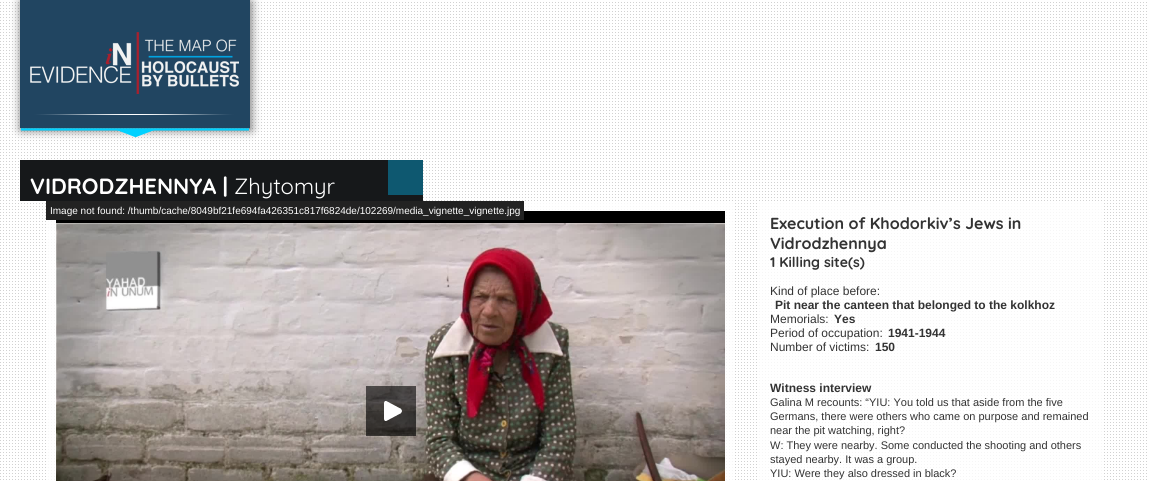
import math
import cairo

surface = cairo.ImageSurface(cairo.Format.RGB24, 1149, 481)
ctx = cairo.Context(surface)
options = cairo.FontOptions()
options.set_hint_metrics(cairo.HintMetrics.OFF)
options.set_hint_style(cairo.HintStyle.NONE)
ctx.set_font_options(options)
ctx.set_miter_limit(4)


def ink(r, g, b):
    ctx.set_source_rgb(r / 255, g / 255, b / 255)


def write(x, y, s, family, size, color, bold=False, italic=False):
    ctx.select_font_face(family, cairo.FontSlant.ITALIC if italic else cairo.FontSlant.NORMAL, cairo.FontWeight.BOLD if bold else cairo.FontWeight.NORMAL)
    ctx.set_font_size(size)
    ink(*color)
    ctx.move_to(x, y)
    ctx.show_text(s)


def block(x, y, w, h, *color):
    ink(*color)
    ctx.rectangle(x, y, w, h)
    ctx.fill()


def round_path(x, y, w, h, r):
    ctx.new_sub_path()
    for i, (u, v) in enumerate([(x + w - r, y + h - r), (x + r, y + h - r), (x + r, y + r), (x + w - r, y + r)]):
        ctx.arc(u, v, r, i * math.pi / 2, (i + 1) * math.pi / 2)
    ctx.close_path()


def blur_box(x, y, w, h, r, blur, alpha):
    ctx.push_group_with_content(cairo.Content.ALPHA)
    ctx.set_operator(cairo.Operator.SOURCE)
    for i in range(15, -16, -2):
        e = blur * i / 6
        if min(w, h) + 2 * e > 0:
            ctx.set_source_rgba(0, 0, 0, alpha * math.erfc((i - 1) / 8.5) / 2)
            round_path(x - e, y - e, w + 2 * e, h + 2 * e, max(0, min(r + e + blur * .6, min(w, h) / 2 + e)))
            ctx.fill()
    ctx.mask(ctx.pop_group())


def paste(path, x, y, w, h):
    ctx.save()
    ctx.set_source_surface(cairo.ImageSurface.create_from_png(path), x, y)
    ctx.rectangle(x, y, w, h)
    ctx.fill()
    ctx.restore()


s1 = dict(family="Quicksand", size=22, color=(255, 255, 255), bold=True)
s2 = dict(family="Quicksand", size=22, color=(255, 255, 255))
s3 = dict(family="Liberation Sans", size=10, color=(255, 255, 255))
s4 = dict(family="Quicksand", size=16, color=(51, 51, 51), bold=True)
s5 = dict(family="Quicksand", size=14, color=(51, 51, 51), bold=True)
s6 = dict(family="Liberation Sans", size=12, color=(51, 51, 51))
s7 = dict(family="Liberation Sans", size=12, color=(51, 51, 51), bold=True)
s8 = dict(family="Liberation Sans", size=11, color=(51, 51, 51))

ink(255, 255, 255)
ctx.paint()
paste("pic3.png", 0, 2, 1147, 478)
ink(0, 0, 0)
blur_box(21, 2, 230, 128, 0, 5, 0.6)
block(20, 0, 230, 128, 33, 69, 97)
paste("pic1.png", 30, 32, 209, 83)
paste("pic2.png", 20, 128, 229, 10)
block(20, 160, 403, 41, 22, 24, 26)
write(30, 194, "VIDRODZHENNYA |", **s1)
write(234, 194, "Zhytomyr", **s2)
block(388, 160, 35, 35, 14, 88, 112)
ctx.set_source_rgba(1, 1, 1, 0.8)
ctx.rectangle(48, 203, 685, 277)
ctx.fill()
paste("pic4.png", 56, 211, 669, 270)
block(46, 201, 478, 19, 34, 34, 34)
write(50, 214, "Image not found: /thumb/cache/8049bf21fe694fa426351c817f6824de/102269/media_vignette_vignette.jpg", **s3)
ctx.set_source_rgba(1, 1, 1, 0.8)
ctx.rectangle(759, 203, 343, 277)
ctx.fill()
write(770, 229, "Execution of Khodorkiv’s Jews in", **s4)
write(770, 249, "Vidrodzhennya", **s4)
write(770, 267, "1 Killing site(s)", **s5)
write(770, 295, "Kind of place before:", **s6)
write(775, 309, "Pit near the canteen that belonged to the kolkhoz", **s7)
write(770, 323, "Memorials:", **s6)
write(834, 323, "Yes", **s7)
write(770, 337, "Period of occupation:", **s6)
write(888, 337, "1941-1944", **s7)
write(770, 351, "Number of victims:", **s6)
write(875, 351, "150", **s7)
write(770, 392, "Witness interview", **s7)
write(770, 406, "Galina M recounts: “YIU: You told us that aside from the five", **s8)
write(770, 420, "Germans, there were others who came on purpose and remained", **s8)
write(770, 434, "near the pit watching, right?", **s8)
write(770, 449, "W: They were nearby. Some conducted the shooting and others", **s8)
write(770, 463, "stayed nearby. It was a group.", **s8)
write(770, 477, "YIU: Were they also dressed in black?", **s8)
surface.write_to_png("screenshot.png")
